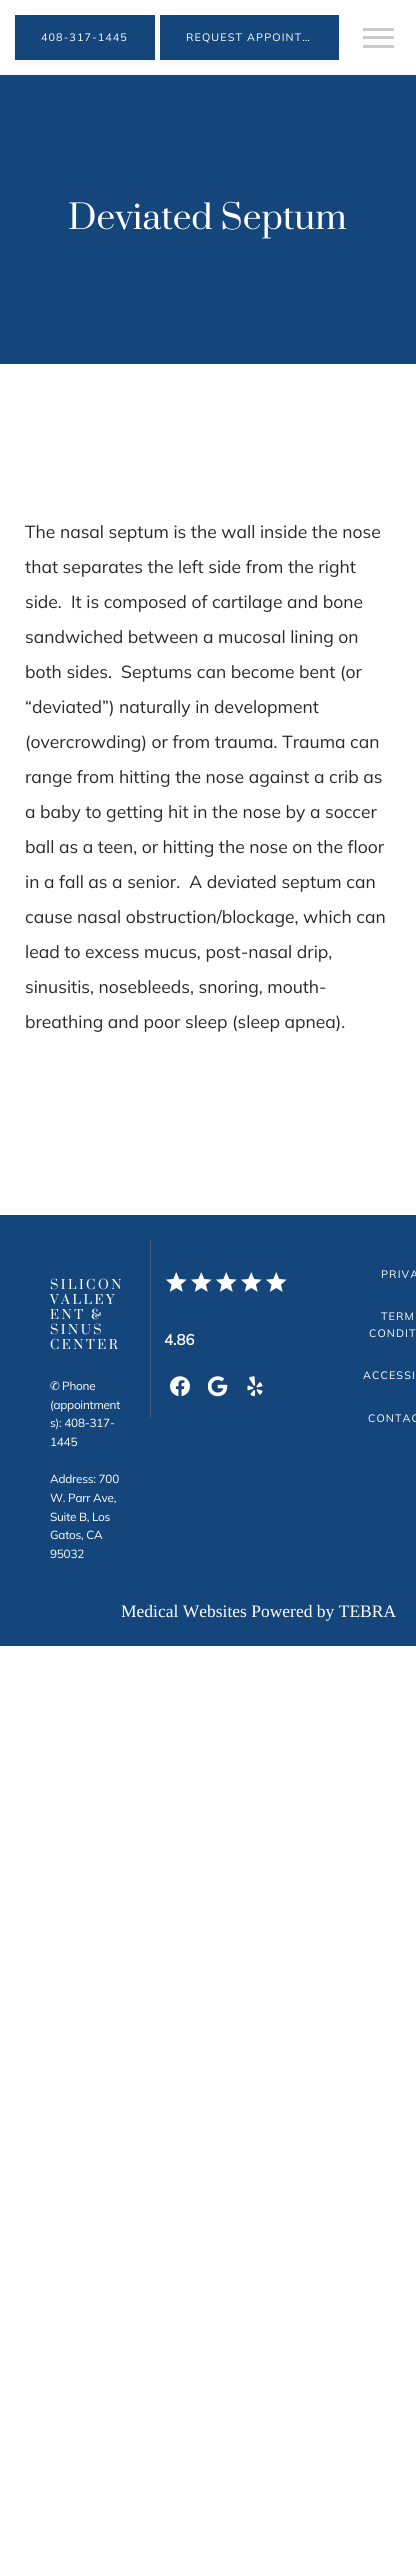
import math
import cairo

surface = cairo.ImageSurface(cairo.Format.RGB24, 416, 2574)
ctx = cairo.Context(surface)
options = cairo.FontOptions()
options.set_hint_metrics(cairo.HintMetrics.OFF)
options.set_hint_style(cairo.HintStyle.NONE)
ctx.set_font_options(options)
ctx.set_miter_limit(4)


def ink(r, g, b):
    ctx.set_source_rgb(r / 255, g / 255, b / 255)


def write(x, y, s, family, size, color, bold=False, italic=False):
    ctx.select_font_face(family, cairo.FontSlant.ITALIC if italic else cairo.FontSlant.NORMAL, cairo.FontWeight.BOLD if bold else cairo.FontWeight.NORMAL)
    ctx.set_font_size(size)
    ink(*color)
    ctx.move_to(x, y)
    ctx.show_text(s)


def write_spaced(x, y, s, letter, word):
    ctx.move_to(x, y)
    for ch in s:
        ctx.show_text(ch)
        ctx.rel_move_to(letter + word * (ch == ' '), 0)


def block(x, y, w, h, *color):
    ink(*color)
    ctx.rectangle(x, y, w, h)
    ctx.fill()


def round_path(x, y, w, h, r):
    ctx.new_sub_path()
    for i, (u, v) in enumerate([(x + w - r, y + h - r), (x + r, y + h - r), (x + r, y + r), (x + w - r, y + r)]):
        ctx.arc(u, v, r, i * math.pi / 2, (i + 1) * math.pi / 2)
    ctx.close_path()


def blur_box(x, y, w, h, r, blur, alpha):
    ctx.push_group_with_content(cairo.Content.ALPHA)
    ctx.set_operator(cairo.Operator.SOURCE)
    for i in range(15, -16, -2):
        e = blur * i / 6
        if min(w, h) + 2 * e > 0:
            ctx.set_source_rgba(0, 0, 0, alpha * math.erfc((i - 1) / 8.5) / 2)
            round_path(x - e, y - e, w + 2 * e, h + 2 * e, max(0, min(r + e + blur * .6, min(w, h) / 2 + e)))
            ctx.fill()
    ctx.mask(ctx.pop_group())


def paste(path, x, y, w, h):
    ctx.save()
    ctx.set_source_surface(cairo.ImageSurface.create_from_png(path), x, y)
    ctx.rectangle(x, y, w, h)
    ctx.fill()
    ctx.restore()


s1 = dict(family="Prata", size=33.25, color=(255, 255, 255))
s2 = dict(family="Mulish", size=17.5, color=(41, 40, 40))
s3 = dict(family="Mulish", size=15, color=(255, 255, 255), bold=True)
s4 = dict(family="Liberation Serif", size=17.5, color=(255, 255, 255))

ink(255, 255, 255)
ctx.paint()
ink(0, 0, 0)
blur_box(14, 19, 140, 45, 0, 3, 0.04)
block(15, 15, 140, 45, 21, 70, 123)
ctx.select_font_face("Mulish")
ctx.set_font_size(10.75)
ink(255, 255, 255)
write_spaced(41, 41, "408-317-1445", 1.1, 0)
ink(0, 0, 0)
blur_box(159, 19, 179, 45, 0, 3, 0.04)
block(160, 15, 179, 45, 21, 70, 123)
ink(255, 255, 255)
write_spaced(186, 41, "REQUEST APPOINT…", 1.1, 0)
block(363, 28, 31, 3, 202, 202, 202)
block(363, 45, 31, 3, 202, 202, 202)
block(363, 36, 31, 3, 202, 202, 202)
block(0, 75, 416, 289, 21, 70, 123)
write(68, 229, "Deviated Septum", **s1)
write(25, 538, "The nasal septum is the wall inside the nose", **s2)
write(25, 573, "that separates the left side from the right", **s2)
write(25, 608, "side.  It is composed of cartilage and bone", **s2)
write(25, 643, "sandwiched between a mucosal lining on", **s2)
write(25, 678, "both sides.  Septums can become bent (or", **s2)
write(25, 713, "“deviated”) naturally in development", **s2)
write(25, 748, "(overcrowding) or from trauma. Trauma can", **s2)
write(25, 783, "range from hitting the nose against a crib as", **s2)
write(25, 818, "a baby to getting hit in the nose by a soccer", **s2)
write(25, 853, "ball as a teen, or hitting the nose on the floor", **s2)
write(25, 888, "in a fall as a senior.  A deviated septum can", **s2)
write(25, 923, "cause nasal obstruction/blockage, which can", **s2)
write(25, 958, "lead to excess mucus, post-nasal drip,", **s2)
write(25, 993, "sinusitis, nosebleeds, snoring, mouth-", **s2)
write(25, 1028, "breathing and poor sleep (sleep apnea).", **s2)
block(0, 1215, 416, 431, 21, 70, 123)
ctx.select_font_face("Prata")
ctx.set_font_size(12.5)
ink(255, 255, 255)
write_spaced(50, 1289, "SILICON", 2.5, 0)
write_spaced(50, 1304, "VALLEY", 2.5, 0)
write_spaced(50, 1319, "ENT &", 2.5, 0)
write_spaced(50, 1334, "SINUS", 2.5, 0)
write_spaced(50, 1349, "CENTER", 2.5, 0)
ctx.select_font_face("DejaVu Sans")
ctx.set_font_size(11.75)
write_spaced(50, 1390, "✆", -0.25, 0)
ctx.select_font_face("Mulish")
write_spaced(62, 1390, "Phone", -0.25, 0)
write_spaced(50, 1409, "(appointment", -0.25, 0)
write_spaced(50, 1427, "s): 408-317-", -0.25, 0)
write_spaced(50, 1446, "1445", -0.25, 0)
write_spaced(50, 1483, "Address: 700", -0.25, 0)
write_spaced(50, 1502, "W. Parr Ave,", -0.25, 0)
write_spaced(50, 1521, "Suite B, Los", -0.25, 0)
write_spaced(50, 1539, "Gatos, CA", -0.25, 0)
write_spaced(50, 1558, "95032", -0.25, 0)
block(150, 1240, 1, 178, 68, 96, 125)
paste("pic1.png", 166, 1272, 21, 20)
paste("pic1.png", 191, 1272, 21, 20)
paste("pic1.png", 216, 1272, 21, 20)
paste("pic1.png", 241, 1272, 21, 20)
paste("pic1.png", 266, 1272, 21, 20)
write(164, 1345, "4.86", **s3)
paste("pic2.png", 170, 1376, 20, 21)
paste("pic3.png", 208, 1376, 20, 21)
paste("pic4.png", 247, 1376, 16, 21)
ctx.select_font_face("Mulish")
ctx.set_font_size(10.75)
write_spaced(381, 1278, "PRIVA", 1.1, 0)
write_spaced(381, 1320, "TERM", 1.1, 0)
write_spaced(369, 1337, "CONDIT", 1.1, 0)
write_spaced(363, 1379, "ACCESSI", 1.1, 0)
write_spaced(368, 1422, "CONTAC", 1.1, 0)
write(121, 1617, "Medical Websites Powered by TEBRA", **s4)
surface.write_to_png("screenshot.png")
